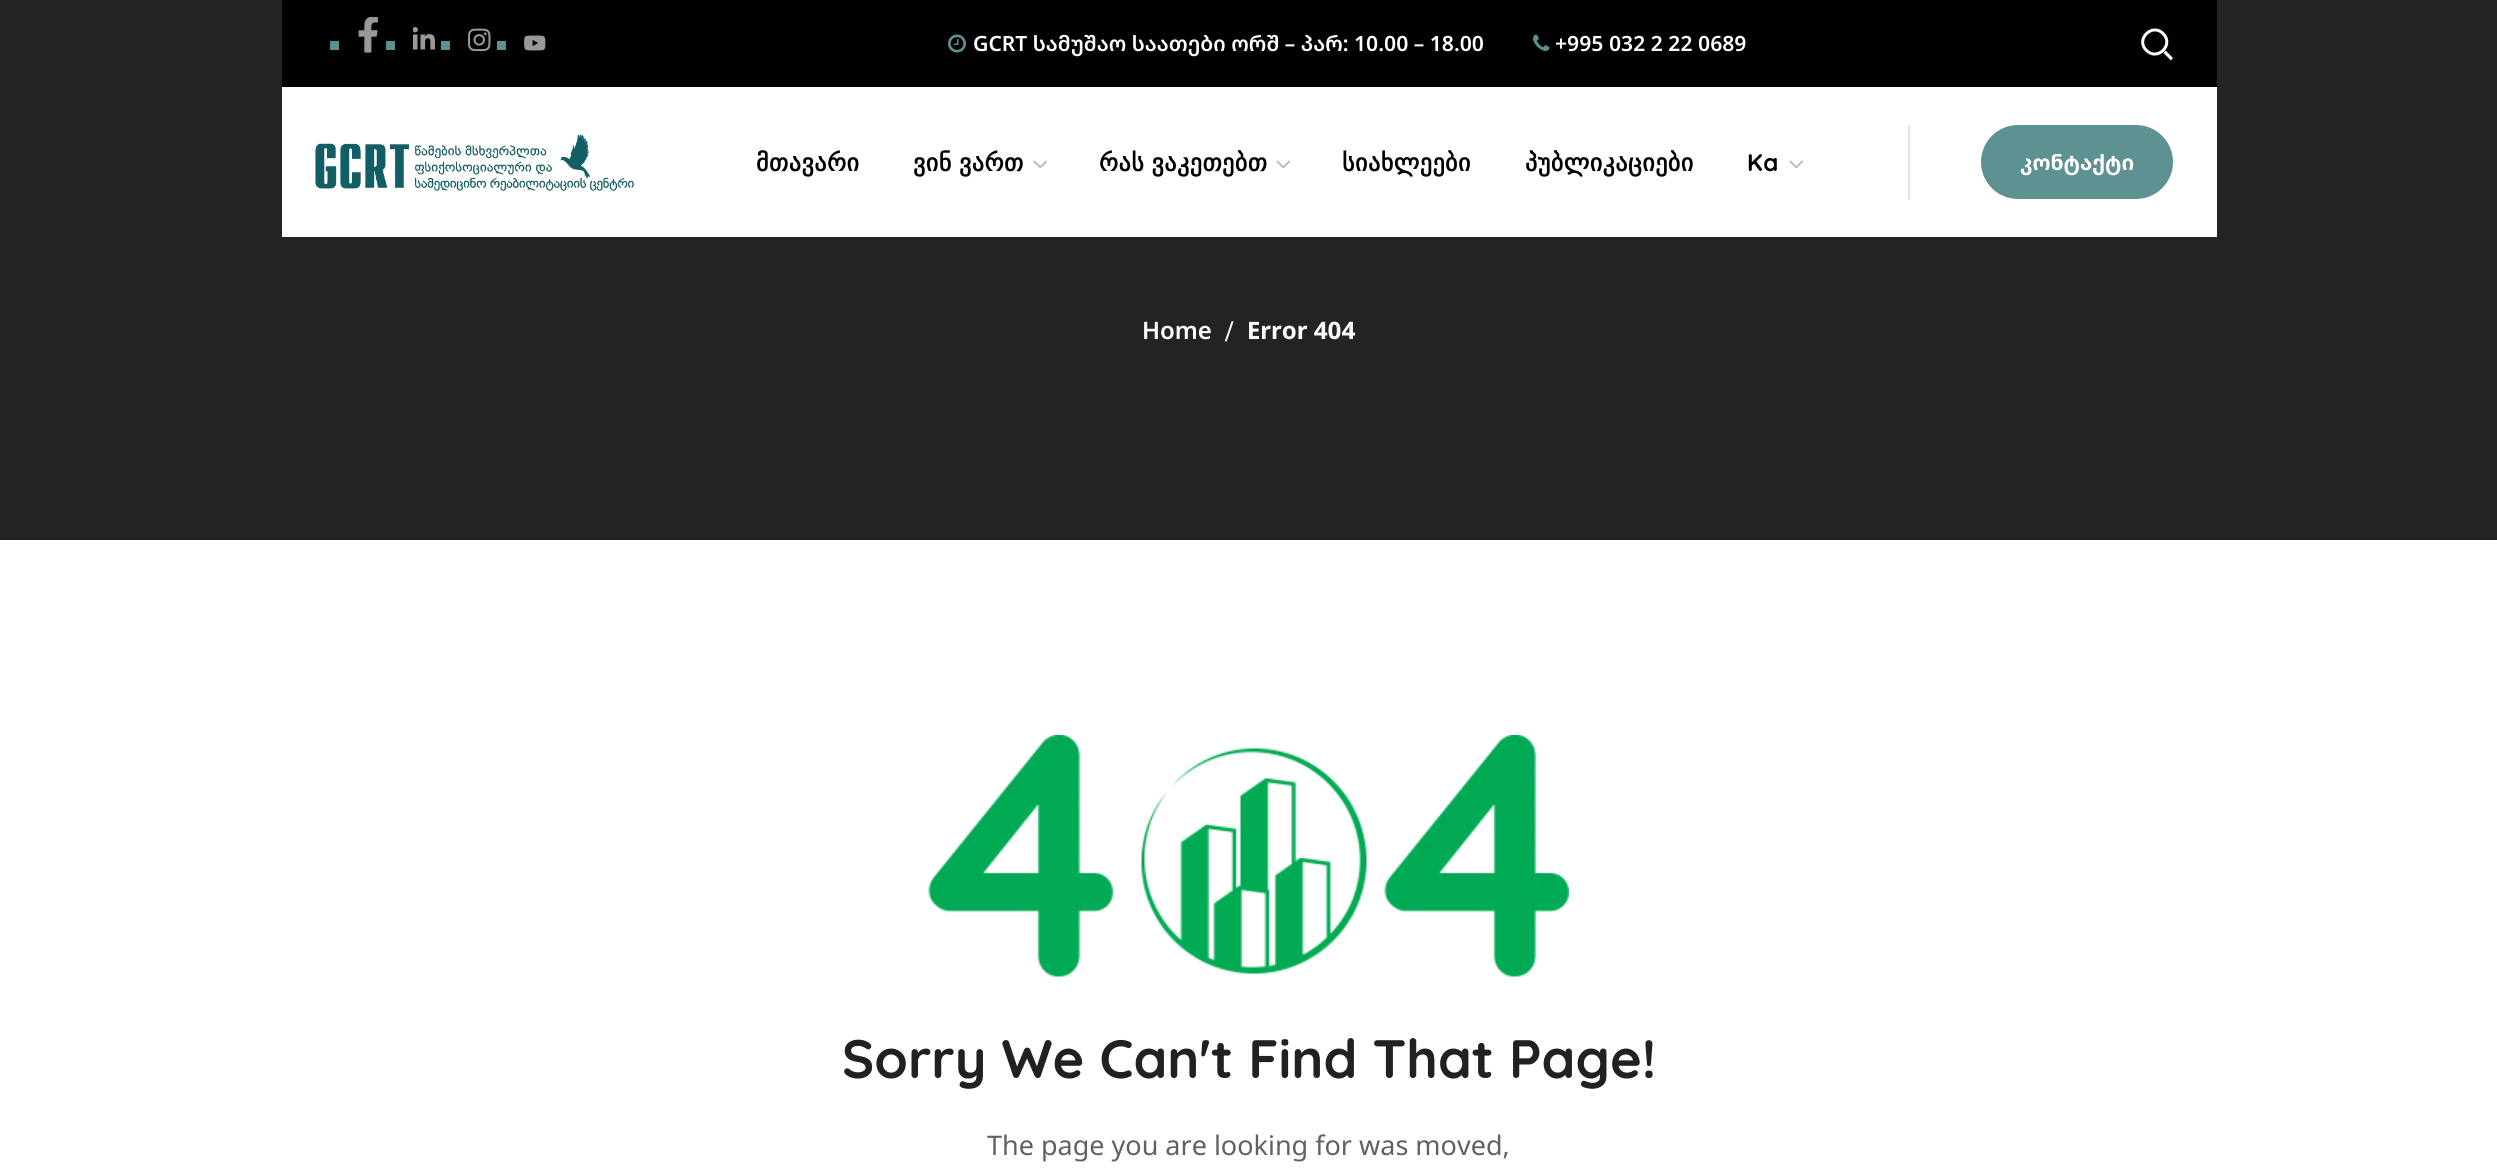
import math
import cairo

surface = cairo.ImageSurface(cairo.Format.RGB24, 2497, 1168)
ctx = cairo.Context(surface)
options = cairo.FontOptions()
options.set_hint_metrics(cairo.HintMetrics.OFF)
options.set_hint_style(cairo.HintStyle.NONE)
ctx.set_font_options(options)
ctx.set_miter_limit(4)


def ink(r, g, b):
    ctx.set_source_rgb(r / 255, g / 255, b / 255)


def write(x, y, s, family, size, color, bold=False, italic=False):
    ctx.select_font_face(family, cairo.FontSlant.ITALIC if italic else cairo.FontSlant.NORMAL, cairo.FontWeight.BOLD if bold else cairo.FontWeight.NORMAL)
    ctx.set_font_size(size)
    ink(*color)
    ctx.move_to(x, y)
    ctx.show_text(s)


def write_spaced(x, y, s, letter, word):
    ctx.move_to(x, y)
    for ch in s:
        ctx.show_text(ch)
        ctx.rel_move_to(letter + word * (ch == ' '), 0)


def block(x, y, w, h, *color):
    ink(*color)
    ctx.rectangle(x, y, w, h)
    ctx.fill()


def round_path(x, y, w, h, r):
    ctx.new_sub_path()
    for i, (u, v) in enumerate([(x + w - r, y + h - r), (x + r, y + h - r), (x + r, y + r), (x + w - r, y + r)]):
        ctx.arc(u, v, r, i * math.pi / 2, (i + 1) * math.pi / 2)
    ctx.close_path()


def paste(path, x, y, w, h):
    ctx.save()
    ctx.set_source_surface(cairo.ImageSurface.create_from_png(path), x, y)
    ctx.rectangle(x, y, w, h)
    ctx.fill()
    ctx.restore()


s1 = dict(family="Noto Sans Georgian SemiBold", size=21, color=(255, 255, 255))
s2 = dict(family="Noto Sans Georgian", size=21, color=(255, 255, 255), bold=True)
s3 = dict(family="Noto Sans Georgian SemiBold", size=24, color=(255, 255, 255))
s4 = dict(family="Liberation Serif", size=30, color=(255, 255, 255), bold=True)
s5 = dict(family="Noto Sans Georgian", size=24, color=(255, 255, 255), bold=True)
s6 = dict(family="Quicksand", size=54, color=(33, 33, 33), bold=True)
s7 = dict(family="Noto Sans Georgian", size=27, color=(97, 97, 97))

ink(255, 255, 255)
ctx.paint()
block(0, 0, 2497, 540, 35, 35, 35)
block(282, 0, 1935, 87, 0, 0, 0)
block(330, 41, 9, 9, 90, 145, 145)
paste("pic1.png", 358, 17, 20, 36)
block(386, 41, 9, 9, 90, 145, 145)
paste("pic2.png", 413, 27, 22, 23)
block(441, 41, 9, 9, 90, 145, 145)
paste("pic3.png", 468, 28, 23, 24)
block(497, 41, 9, 9, 90, 145, 145)
paste("pic4.png", 524, 35, 22, 16)
paste("pic5.png", 948, 34, 18, 19)
write(973, 51, "GCRT სამუშაო საათები ორშ – პარ: 10.00 – 18.00", **s1)
paste("pic6.png", 1533, 34, 17, 17)
write(1555, 51, "+995 032 2 22 0689", **s1)
ctx.new_path()
ctx.move_to(2163, 33.5)
ctx.curve_to(2174.5, 44.5, 2157.5, 61.5, 2146.5, 50.5)
ctx.curve_to(2135, 39.5, 2152, 22.5, 2163, 33.5)
ctx.close_path()
ctx.set_line_width(3)
ctx.stroke()
ctx.new_path()
ctx.move_to(2163.5, 53)
ctx.line_to(2165.5, 50.5)
ctx.line_to(2173, 58)
ctx.line_to(2171, 60.5)
ctx.close_path()
ctx.fill()
block(282, 87, 1935, 150, 255, 255, 255)
paste("pic7.png", 315, 134, 319, 57)
ctx.select_font_face("DejaVu Sans", cairo.FontSlant.NORMAL, cairo.FontWeight.BOLD)
ctx.set_font_size(24)
ink(0, 0, 0)
write_spaced(756, 171, "მთავარი", 0.5, 0)
write_spaced(913, 171, "ვინ ვართ", 0.5, -1)
paste("pic8.png", 1033, 160, 14, 9)
write_spaced(1099, 171, "რას ვაკეთებთ", 0.5, -1)
paste("pic8.png", 1276, 160, 14, 9)
write_spaced(1342, 171, "სიახლეები", 0.5, 0)
write_spaced(1525, 171, "პუბლიკაციები", 0.5, 0)
ctx.select_font_face("Quicksand", cairo.FontSlant.NORMAL, cairo.FontWeight.BOLD)
write_spaced(1747, 171, "Ka", 0.5, 0)
paste("pic8.png", 1789, 160, 14, 9)
block(1908, 125, 2, 75, 229, 229, 229)
ink(94, 145, 145)
round_path(1980, 124, 194, 76, 38)
ctx.fill_preserve()
ink(255, 255, 255)
ctx.set_line_width(2)
ctx.stroke()
write(2020, 170, "კონტაქტი", **s2)
write(1142, 339, "Home", **s3)
write(1225, 341, "/", **s4)
write(1247, 339, "Error 404", **s5)
paste("pic9.png", 928, 735, 641, 242)
write(842, 1078, "Sorry We Can't Find That Page!", **s6)
write(987, 1155, "The page you are looking for was moved,", **s7)
surface.write_to_png("screenshot.png")
